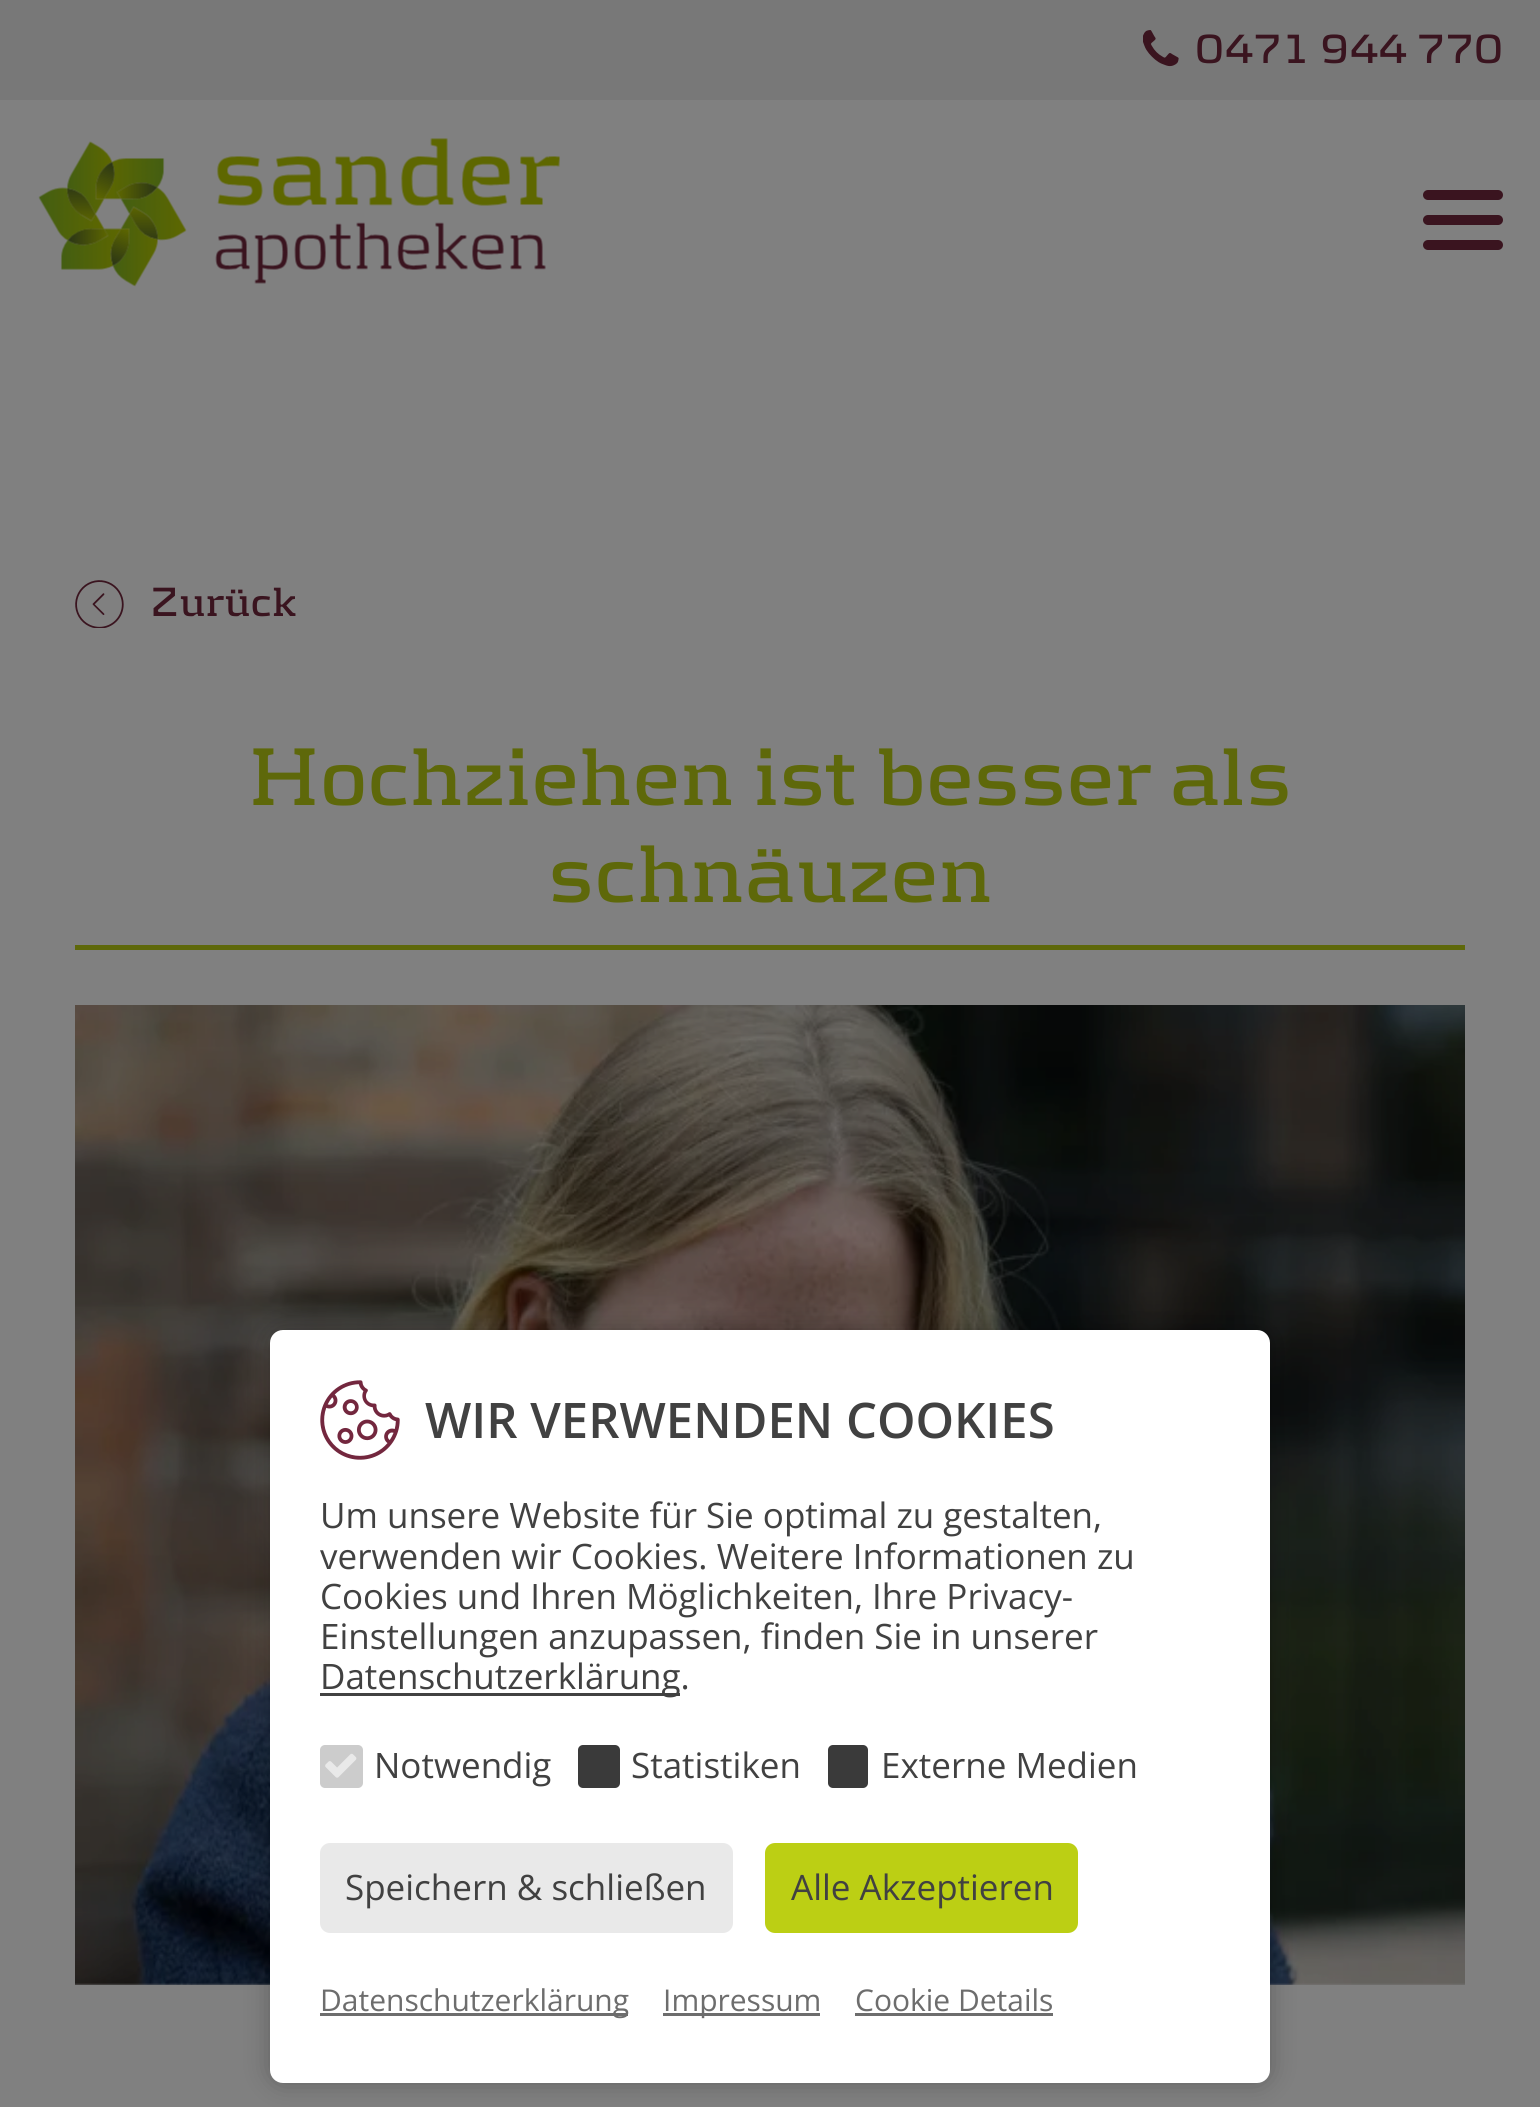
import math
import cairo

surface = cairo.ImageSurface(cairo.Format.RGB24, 1540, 2107)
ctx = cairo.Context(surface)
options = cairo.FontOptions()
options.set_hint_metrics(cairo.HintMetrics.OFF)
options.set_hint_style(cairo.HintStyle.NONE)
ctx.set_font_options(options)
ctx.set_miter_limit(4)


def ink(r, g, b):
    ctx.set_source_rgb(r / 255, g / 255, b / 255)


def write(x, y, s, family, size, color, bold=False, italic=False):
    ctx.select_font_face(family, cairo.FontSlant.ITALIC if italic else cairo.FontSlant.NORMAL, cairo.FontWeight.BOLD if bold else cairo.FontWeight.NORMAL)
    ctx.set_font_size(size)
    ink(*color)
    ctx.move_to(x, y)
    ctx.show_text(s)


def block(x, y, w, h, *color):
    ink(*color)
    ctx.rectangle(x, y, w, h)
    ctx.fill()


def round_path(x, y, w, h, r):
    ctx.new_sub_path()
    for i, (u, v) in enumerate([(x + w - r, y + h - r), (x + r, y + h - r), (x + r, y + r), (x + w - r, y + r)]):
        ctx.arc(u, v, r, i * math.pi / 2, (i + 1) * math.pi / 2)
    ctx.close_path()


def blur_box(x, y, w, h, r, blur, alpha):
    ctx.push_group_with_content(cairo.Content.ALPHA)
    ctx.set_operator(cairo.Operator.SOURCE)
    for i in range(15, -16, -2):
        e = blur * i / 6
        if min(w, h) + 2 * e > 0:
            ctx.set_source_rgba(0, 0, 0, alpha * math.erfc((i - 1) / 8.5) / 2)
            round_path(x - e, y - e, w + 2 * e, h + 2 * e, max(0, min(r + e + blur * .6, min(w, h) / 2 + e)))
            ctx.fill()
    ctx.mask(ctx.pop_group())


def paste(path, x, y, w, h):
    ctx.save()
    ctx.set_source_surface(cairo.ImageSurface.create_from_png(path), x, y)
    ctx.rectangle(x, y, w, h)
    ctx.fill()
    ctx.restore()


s1 = dict(family="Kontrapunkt", size=42.5, color=(58, 20, 31), bold=True)
s2 = dict(family="Kontrapunkt", size=85, color=(94, 104, 10), bold=True)
s3 = dict(family="Open Sans SemiBold", size=49, color=(65, 65, 65))
s4 = dict(family="Open Sans", size=35, color=(65, 65, 65))
s5 = dict(family="Open Sans", size=30, color=(109, 109, 109))

ink(128, 128, 128)
ctx.paint()
block(0, 0, 1540, 100, 120, 120, 120)
paste("pic1.png", 1143, 30, 36, 37)
write(1195, 63, "0471 944 770", **s1)
paste("pic2.png", 38, 138, 522, 149)
round_path(1423, 190, 80, 10, 5)
ctx.fill()
round_path(1423, 215, 80, 10, 5)
ctx.fill()
round_path(1423, 240, 80, 10, 5)
ctx.fill()
paste("pic3.png", 75, 580, 49, 48)
write(151, 616, "Zurück", **s1)
block(75, 945, 1390, 5, 94, 104, 10)
write(248, 805, "Hochziehen ist besser als", **s2)
write(548, 902, "schnäuzen", **s2)
paste("pic4.png", 75, 1005, 1390, 980)
ink(0, 0, 0)
blur_box(270, 1330, 1000, 753, 13, 12.5, 0.25)
ink(255, 255, 255)
round_path(270, 1330, 1000, 753, 13)
ctx.fill()
paste("pic5.png", 320, 1380, 80, 80)
write(425, 1438, "WIR VERWENDEN COOKIES", **s3)
write(320, 1528, "Um unsere Website für Sie optimal zu gestalten,", **s4)
write(320, 1569, "verwenden wir Cookies. Weitere Informationen zu", **s4)
write(320, 1609, "Cookies und Ihren Möglichkeiten, Ihre Privacy-", **s4)
write(320, 1649, "Einstellungen anzupassen, finden Sie in unserer", **s4)
block(320, 1693, 360, 3, 65, 65, 65)
write(320, 1689, "Datenschutzerklärung.", **s4)
ink(204, 204, 204)
round_path(320, 1745, 43, 43, 5)
ctx.fill()
paste("pic6.png", 325, 1753, 32, 25)
write(374, 1778, "Notwendig", **s4)
ink(58, 58, 58)
round_path(578, 1745, 42, 43, 5)
ctx.fill()
write(631, 1778, "Statistiken", **s4)
ink(58, 58, 58)
round_path(828, 1745, 40, 43, 5)
ctx.fill()
write(881, 1778, "Externe Medien", **s4)
ink(233, 233, 233)
round_path(320, 1843, 413, 90, 10)
ctx.fill()
write(345, 1900, "Speichern & schließen", **s4)
ink(188, 207, 20)
round_path(765, 1843, 313, 90, 10)
ctx.fill()
write(791, 1900, "Alle Akzeptieren", **s4)
block(320, 2013, 308, 3, 109, 109, 109)
write(320, 2011, "Datenschutzerklärung", **s5)
block(663, 2013, 157, 3, 109, 109, 109)
write(663, 2011, "Impressum", **s5)
write(855, 2011, "Cookie Details", **s5)
block(855, 2013, 198, 3, 109, 109, 109)
surface.write_to_png("screenshot.png")
